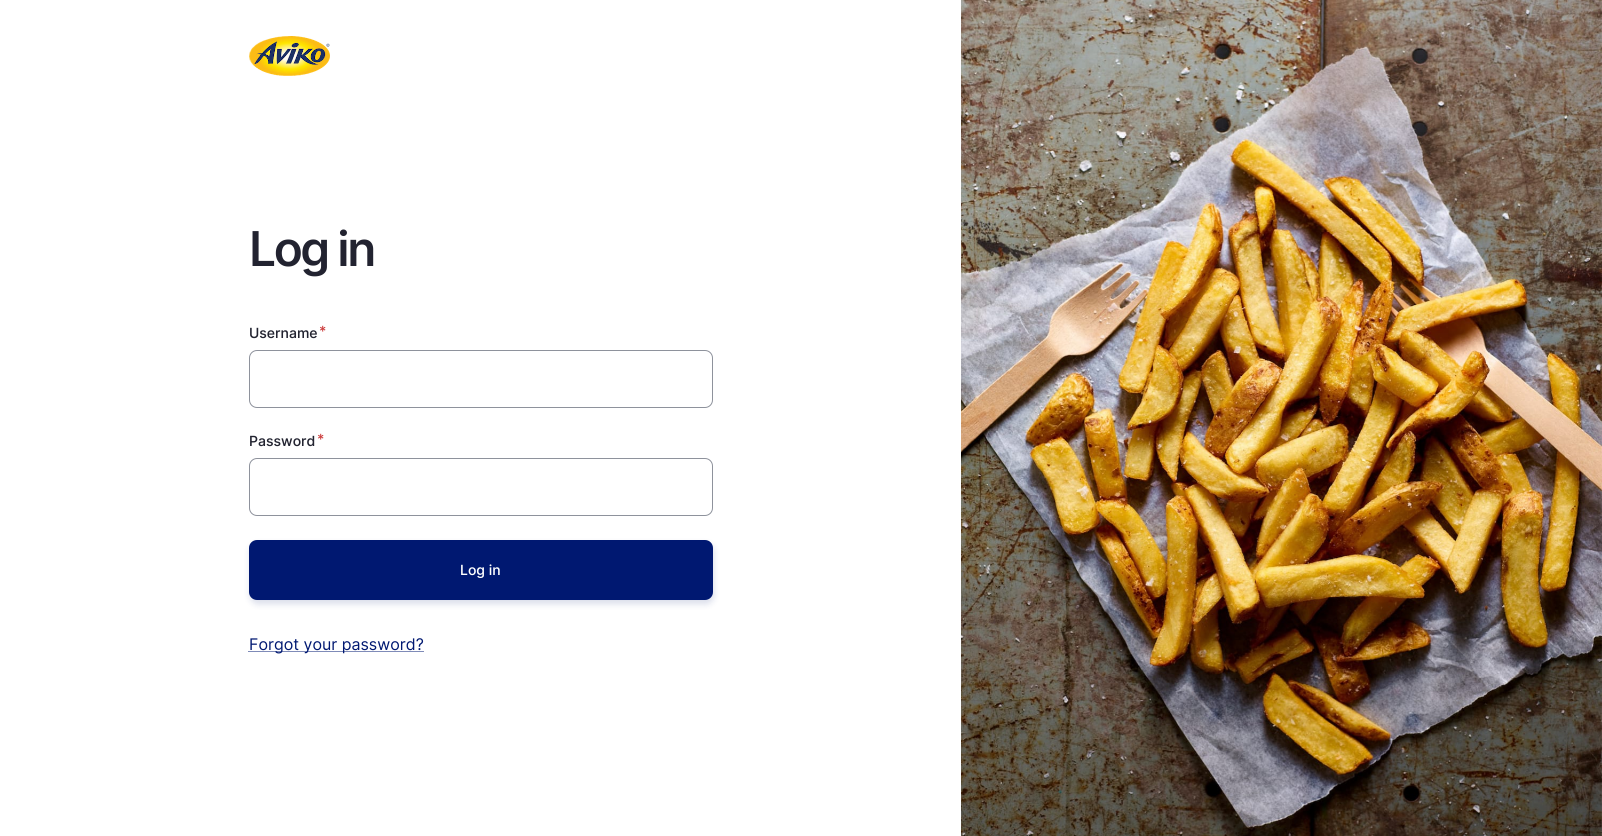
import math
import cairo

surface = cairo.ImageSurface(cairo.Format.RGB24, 1602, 836)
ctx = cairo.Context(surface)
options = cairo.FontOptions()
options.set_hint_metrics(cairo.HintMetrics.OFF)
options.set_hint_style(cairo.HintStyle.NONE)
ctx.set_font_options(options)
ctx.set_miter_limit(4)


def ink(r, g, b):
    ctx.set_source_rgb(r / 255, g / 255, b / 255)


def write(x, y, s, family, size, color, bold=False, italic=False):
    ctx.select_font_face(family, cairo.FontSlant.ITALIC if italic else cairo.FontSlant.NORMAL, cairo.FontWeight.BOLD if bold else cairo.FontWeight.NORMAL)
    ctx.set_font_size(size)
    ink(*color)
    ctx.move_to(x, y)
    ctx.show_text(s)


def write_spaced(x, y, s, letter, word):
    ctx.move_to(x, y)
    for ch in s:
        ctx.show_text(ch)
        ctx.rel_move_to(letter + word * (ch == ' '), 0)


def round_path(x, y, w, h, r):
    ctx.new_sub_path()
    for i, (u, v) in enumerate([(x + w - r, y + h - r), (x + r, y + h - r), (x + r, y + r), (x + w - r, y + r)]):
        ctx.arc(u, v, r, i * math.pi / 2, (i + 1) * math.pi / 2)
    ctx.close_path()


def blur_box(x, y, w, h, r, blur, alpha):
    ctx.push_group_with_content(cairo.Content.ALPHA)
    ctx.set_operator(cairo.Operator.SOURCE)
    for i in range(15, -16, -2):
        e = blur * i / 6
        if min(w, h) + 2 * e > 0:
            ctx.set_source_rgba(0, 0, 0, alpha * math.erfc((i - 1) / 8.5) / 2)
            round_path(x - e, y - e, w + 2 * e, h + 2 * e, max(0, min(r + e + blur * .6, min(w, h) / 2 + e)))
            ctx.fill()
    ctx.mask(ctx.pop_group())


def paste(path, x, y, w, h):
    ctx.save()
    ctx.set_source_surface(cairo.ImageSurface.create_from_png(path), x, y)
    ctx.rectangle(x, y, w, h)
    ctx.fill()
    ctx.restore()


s1 = dict(family="Inter Medium", size=14, color=(34, 35, 48))
s2 = dict(family="Inter Medium", size=14, color=(204, 61, 61))
s3 = dict(family="Inter Medium", size=14, color=(255, 255, 255))
s4 = dict(family="Inter", size=16, color=(0, 24, 113))

ink(255, 255, 255)
ctx.paint()
paste("pic1.png", 249, 36, 81, 40)
ctx.select_font_face("Inter SemiBold")
ctx.set_font_size(48)
ink(34, 35, 48)
write_spaced(249, 266, "Log in", -2.5, 0)
write(249, 338, "Username", **s1)
write(319, 336, "*", **s2)
round_path(249.5, 350.5, 463, 57, 7.5)
ink(142, 146, 156)
ctx.set_line_width(1)
ctx.stroke()
write(249, 446, "Password", **s1)
write(317, 444, "*", **s2)
round_path(249.5, 458.5, 463, 57, 7.5)
ink(142, 146, 156)
ctx.stroke()
ink(0, 24, 113)
blur_box(250, 544, 464, 60, 8, 3.5, 0.15)
ink(0, 24, 113)
round_path(250, 541, 462, 58, 7)
ctx.fill_preserve()
ctx.set_line_width(2)
ctx.stroke()
write(460, 575, "Log in", **s3)
ctx.new_path()
ctx.move_to(248.5, 651.5)
ctx.line_to(423.5, 651.5)
ink(0, 24, 113)
ctx.set_line_width(1)
ctx.set_dash([1, 1])
ctx.stroke()
write(249, 650, "Forgot your password?", **s4)
paste("pic2.png", 961, 0, 641, 836)
surface.write_to_png("screenshot.png")
